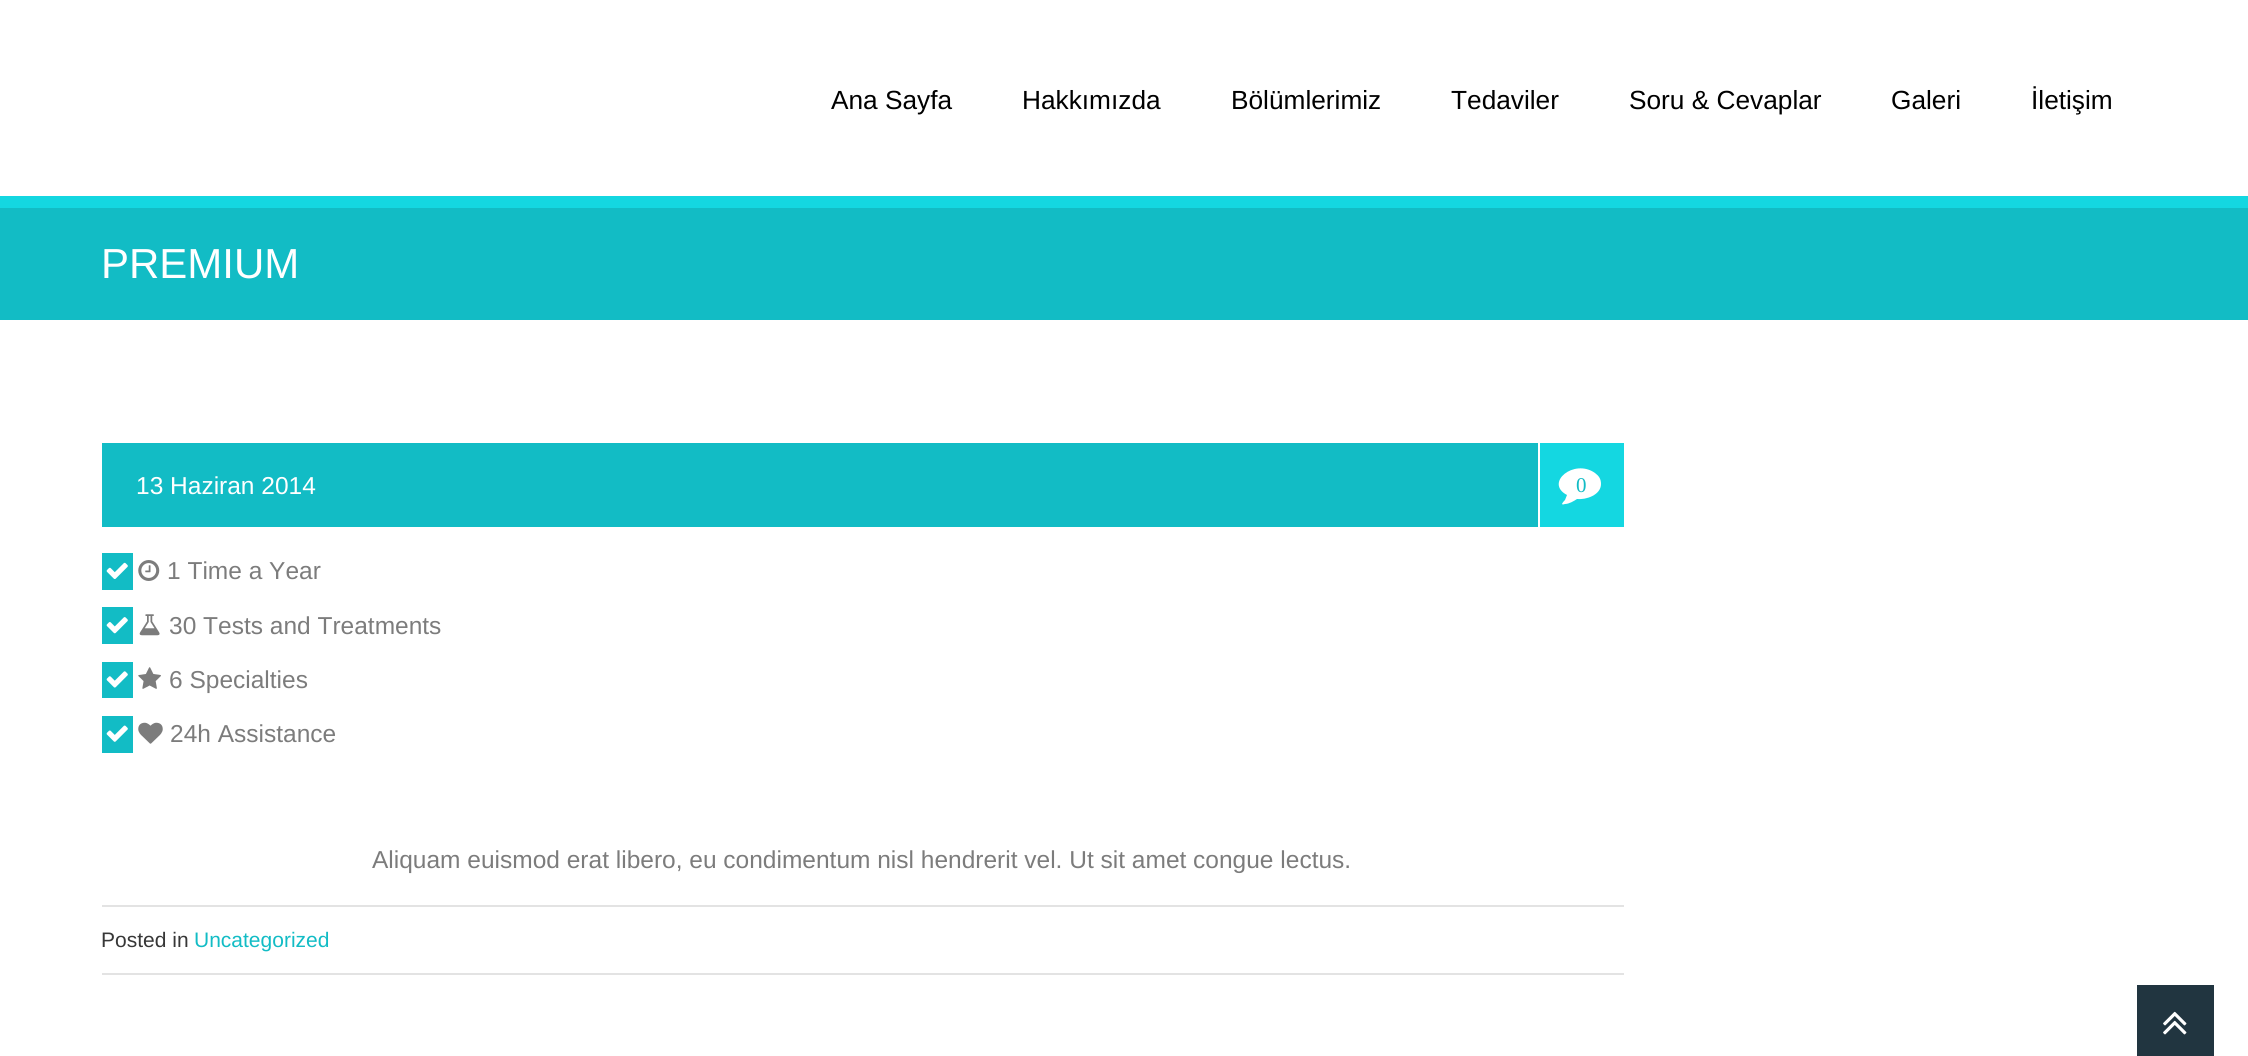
import math
import cairo

surface = cairo.ImageSurface(cairo.Format.RGB24, 2248, 1056)
ctx = cairo.Context(surface)
options = cairo.FontOptions()
options.set_hint_metrics(cairo.HintMetrics.OFF)
options.set_hint_style(cairo.HintStyle.NONE)
ctx.set_font_options(options)
ctx.set_miter_limit(4)


def ink(r, g, b):
    ctx.set_source_rgb(r / 255, g / 255, b / 255)


def write(x, y, s, family, size, color, bold=False, italic=False):
    ctx.select_font_face(family, cairo.FontSlant.ITALIC if italic else cairo.FontSlant.NORMAL, cairo.FontWeight.BOLD if bold else cairo.FontWeight.NORMAL)
    ctx.set_font_size(size)
    ink(*color)
    ctx.move_to(x, y)
    ctx.show_text(s)


def block(x, y, w, h, *color):
    ink(*color)
    ctx.rectangle(x, y, w, h)
    ctx.fill()


def paste(path, x, y, w, h):
    ctx.save()
    ctx.set_source_surface(cairo.ImageSurface.create_from_png(path), x, y)
    ctx.rectangle(x, y, w, h)
    ctx.fill()
    ctx.restore()


s1 = dict(family="Liberation Sans", size=26.25, color=(0, 0, 0))
s2 = dict(family="Liberation Sans", size=42, color=(255, 255, 255))
s3 = dict(family="Liberation Sans", size=24.5, color=(255, 255, 255))
s4 = dict(family="Liberation Serif", size=21, color=(18, 188, 197))
s5 = dict(family="Liberation Sans", size=24.5, color=(124, 124, 124))
s6 = dict(family="Liberation Sans", size=21, color=(55, 55, 55))
s7 = dict(family="Liberation Sans", size=21, color=(18, 188, 197))

ink(255, 255, 255)
ctx.paint()
write(831, 109, "Ana Sayfa", **s1)
write(1022, 109, "Hakkımızda", **s1)
write(1231, 109, "Bölümlerimiz", **s1)
write(1451, 109, "Tedaviler", **s1)
write(1629, 109, "Soru & Cevaplar", **s1)
write(1891, 109, "Galeri", **s1)
write(2031, 109, "İletişim", **s1)
block(0, 208, 2248, 112, 18, 188, 197)
block(0, 196, 2248, 12, 20, 215, 225)
write(101, 278, "PREMIUM", **s2)
block(102, 443, 1436, 84, 18, 188, 197)
write(136, 494, "13 Haziran 2014", **s3)
block(1540, 443, 84, 84, 20, 215, 225)
ink(255, 255, 255)
ctx.new_path()
ctx.move_to(1601, 484)
ctx.curve_to(1601, 479, 1599, 476, 1595, 473)
ctx.curve_to(1574, 458, 1544, 483, 1567, 495)
ctx.line_to(1565, 500)
ctx.curve_to(1564, 501, 1559, 506, 1565, 504)
ctx.curve_to(1569, 504, 1574, 501, 1577, 499)
ctx.curve_to(1586, 500, 1601, 495, 1601, 484)
ctx.close_path()
ctx.fill()
write(1576, 492, "0", **s4)
block(102, 553, 31, 37, 18, 188, 197)
paste("pic1.png", 106, 562, 22, 17)
paste("pic2.png", 138, 560, 22, 21)
write(167, 579, "1 Time a Year", **s5)
block(102, 607, 31, 37, 18, 188, 197)
paste("pic3.png", 106, 617, 22, 17)
paste("pic4.png", 139, 614, 21, 22)
write(169, 634, "30 Tests and Treatments", **s5)
block(102, 662, 31, 36, 18, 188, 197)
paste("pic5.png", 106, 671, 22, 17)
paste("pic6.png", 138, 667, 23, 22)
write(169, 688, "6 Specialties", **s5)
block(102, 716, 31, 37, 18, 188, 197)
paste("pic7.png", 106, 725, 22, 17)
paste("pic8.png", 138, 722, 25, 22)
write(170, 742, "24h Assistance", **s5)
write(372, 868, "Aliquam euismod erat libero, eu condimentum nisl hendrerit vel. Ut sit amet congue lectus.", **s5)
block(102, 905, 1522, 2, 227, 227, 227)
block(102, 973, 1522, 2, 227, 227, 227)
write(101, 947, "Posted in", **s6)
write(194, 947, "Uncategorized", **s7)
block(2137, 985, 77, 71, 33, 53, 64)
paste("pic9.png", 2163, 1011, 24, 24)
surface.write_to_png("screenshot.png")
